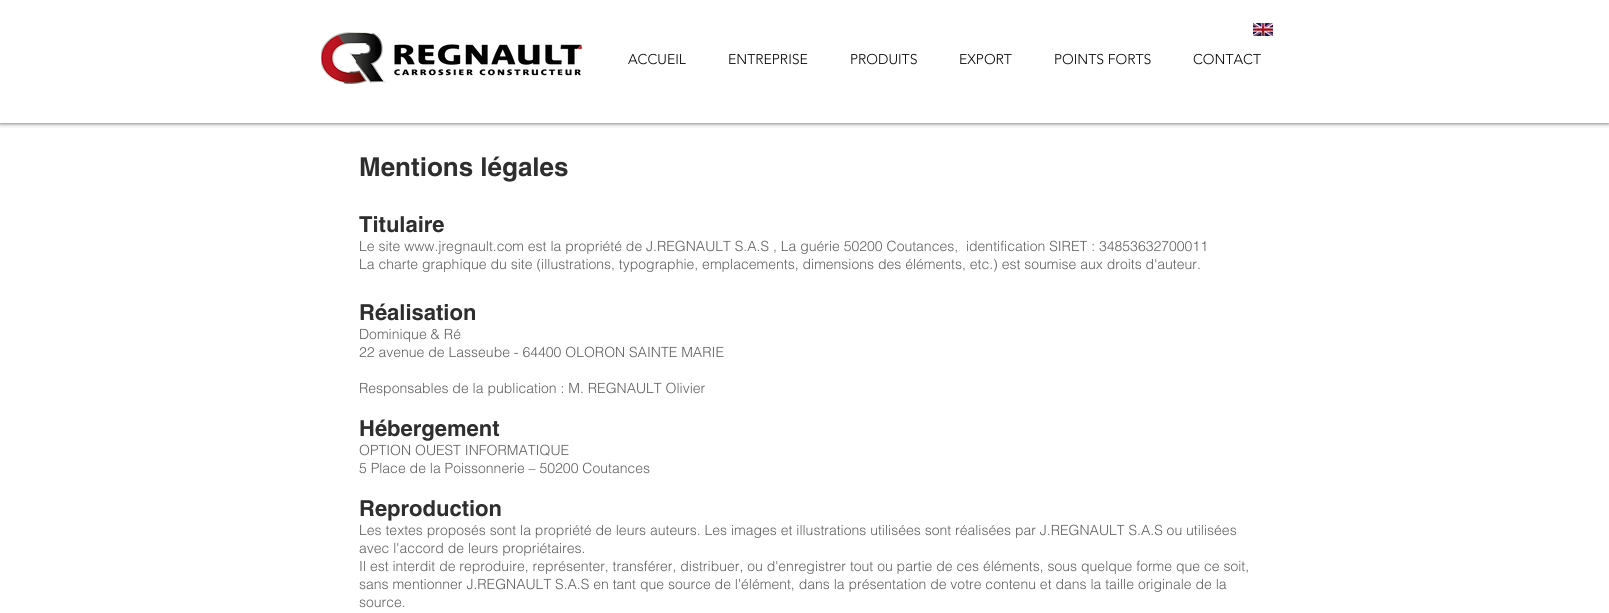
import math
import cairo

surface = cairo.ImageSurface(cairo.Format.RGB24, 1609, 613)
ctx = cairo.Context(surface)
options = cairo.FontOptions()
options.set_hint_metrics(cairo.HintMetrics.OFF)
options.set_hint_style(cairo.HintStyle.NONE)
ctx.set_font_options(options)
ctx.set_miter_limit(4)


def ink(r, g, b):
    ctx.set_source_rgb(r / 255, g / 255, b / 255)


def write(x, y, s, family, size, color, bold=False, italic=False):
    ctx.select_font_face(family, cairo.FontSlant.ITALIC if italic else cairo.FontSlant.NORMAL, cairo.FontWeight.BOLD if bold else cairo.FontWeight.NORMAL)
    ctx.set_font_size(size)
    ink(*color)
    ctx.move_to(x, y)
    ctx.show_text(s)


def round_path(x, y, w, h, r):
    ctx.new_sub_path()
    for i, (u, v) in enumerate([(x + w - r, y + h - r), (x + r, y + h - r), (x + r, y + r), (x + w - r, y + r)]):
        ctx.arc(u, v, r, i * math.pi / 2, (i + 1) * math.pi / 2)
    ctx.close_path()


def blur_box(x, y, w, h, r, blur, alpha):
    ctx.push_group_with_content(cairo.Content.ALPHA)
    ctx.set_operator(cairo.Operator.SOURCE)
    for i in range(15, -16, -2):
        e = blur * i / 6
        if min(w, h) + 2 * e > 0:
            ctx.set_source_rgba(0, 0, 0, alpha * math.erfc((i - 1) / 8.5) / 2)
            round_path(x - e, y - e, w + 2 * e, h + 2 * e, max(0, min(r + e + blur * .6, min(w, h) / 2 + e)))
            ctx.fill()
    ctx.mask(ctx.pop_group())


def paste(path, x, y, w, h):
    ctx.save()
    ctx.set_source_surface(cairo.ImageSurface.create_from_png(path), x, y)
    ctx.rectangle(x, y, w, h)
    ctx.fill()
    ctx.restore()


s1 = dict(family="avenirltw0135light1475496 Light", size=14, color=(0, 0, 0))
s2 = dict(family="helvetica", size=26, color=(47, 46, 46), bold=True)
s3 = dict(family="helvetica", size=22, color=(47, 46, 46), bold=True)
s4 = dict(family="helvetica Light", size=14, color=(96, 94, 94))

ink(255, 255, 255)
ctx.paint()
ctx.save()
ctx.rectangle(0, 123, 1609, 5)
ctx.clip()
ink(0, 0, 0)
blur_box(0, 0, 1609, 123, 0, 2.5, 0.7)
ctx.restore()
paste("pic1.png", 1253, 23, 20, 13)
paste("pic2.png", 321, 32, 261, 52)
write(628, 64, "ACCUEIL", **s1)
write(728, 64, "ENTREPRISE", **s1)
write(850, 64, "PRODUITS", **s1)
write(959, 64, "EXPORT", **s1)
write(1054, 64, "POINTS FORTS", **s1)
write(1193, 64, "CONTACT", **s1)
write(359, 176, "Mentions légales", **s2)
write(359, 232, "Titulaire", **s3)
write(359, 251, "Le site www.jregnault.com est la propriété de J.REGNAULT S.A.S , La guérie 50200 Coutances,  identification SIRET : 34853632700011", **s4)
write(359, 269, "La charte graphique du site (illustrations, typographie, emplacements, dimensions des éléments, etc.) est soumise aux droits d'auteur.", **s4)
write(359, 320, "Réalisation", **s3)
write(359, 339, "Dominique & Ré", **s4)
write(359, 357, "22 avenue de Lasseube - 64400 OLORON SAINTE MARIE", **s4)
write(359, 393, "Responsables de la publication : M. REGNAULT Olivier", **s4)
write(359, 436, "Hébergement", **s3)
write(359, 455, "OPTION OUEST INFORMATIQUE", **s4)
write(359, 473, "5 Place de la Poissonnerie – 50200 Coutances", **s4)
write(359, 516, "Reproduction", **s3)
write(359, 535, "Les textes proposés sont la propriété de leurs auteurs. Les images et illustrations utilisées sont réalisées par J.REGNAULT S.A.S ou utilisées", **s4)
write(359, 553, "avec l'accord de leurs propriétaires.", **s4)
write(359, 571, "Il est interdit de reproduire, représenter, transférer, distribuer, ou d'enregistrer tout ou partie de ces éléments, sous quelque forme que ce soit,", **s4)
write(359, 589, "sans mentionner J.REGNAULT S.A.S en tant que source de l'élément, dans la présentation de votre contenu et dans la taille originale de la", **s4)
write(359, 607, "source.", **s4)
surface.write_to_png("screenshot.png")
